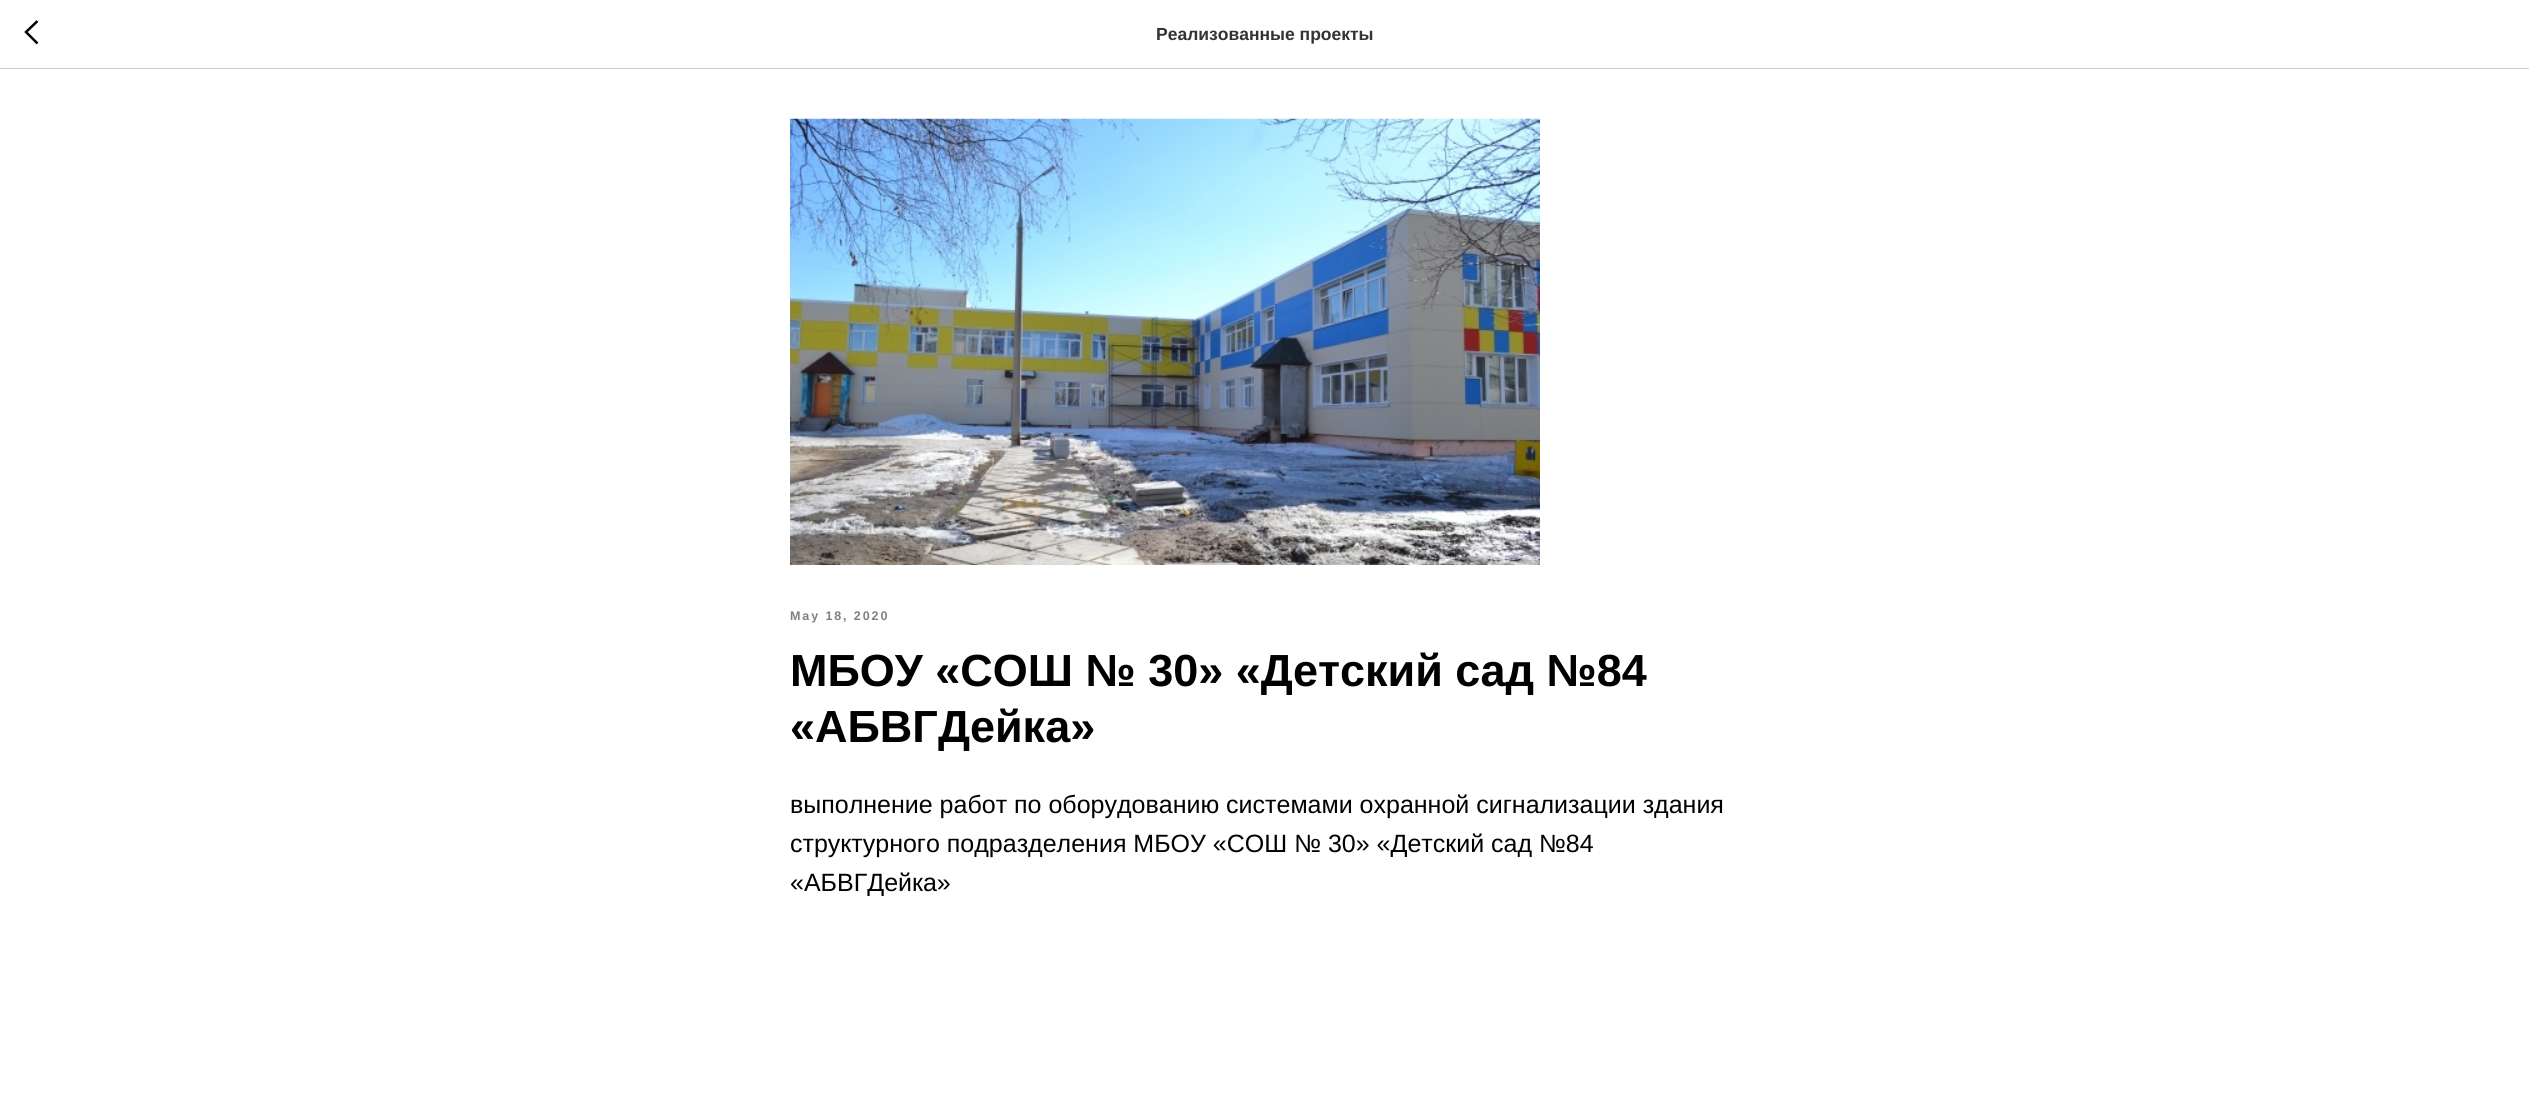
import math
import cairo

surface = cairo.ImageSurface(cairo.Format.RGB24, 2529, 1115)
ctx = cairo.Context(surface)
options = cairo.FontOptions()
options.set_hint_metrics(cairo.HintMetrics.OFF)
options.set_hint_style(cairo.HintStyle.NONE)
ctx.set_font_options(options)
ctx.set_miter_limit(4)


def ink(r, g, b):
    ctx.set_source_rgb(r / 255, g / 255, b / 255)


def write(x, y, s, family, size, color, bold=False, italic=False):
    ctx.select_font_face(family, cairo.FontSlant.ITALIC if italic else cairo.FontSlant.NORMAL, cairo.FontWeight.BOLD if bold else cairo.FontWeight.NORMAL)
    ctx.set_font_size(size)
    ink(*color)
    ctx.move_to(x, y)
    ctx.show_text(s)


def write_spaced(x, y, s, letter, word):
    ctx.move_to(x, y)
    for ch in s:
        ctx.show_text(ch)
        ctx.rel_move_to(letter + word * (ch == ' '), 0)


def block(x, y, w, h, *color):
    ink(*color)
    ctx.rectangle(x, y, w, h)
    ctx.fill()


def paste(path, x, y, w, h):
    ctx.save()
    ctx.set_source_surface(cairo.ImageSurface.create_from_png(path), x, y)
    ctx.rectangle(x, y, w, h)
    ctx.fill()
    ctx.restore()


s1 = dict(family="Liberation Sans", size=17.5, color=(51, 51, 51), bold=True)
s2 = dict(family="Liberation Sans", size=45, color=(0, 0, 0), bold=True)
s3 = dict(family="Liberation Sans", size=25, color=(0, 0, 0))

ink(255, 255, 255)
ctx.paint()
block(0, 68, 2529, 1, 204, 204, 204)
ctx.new_path()
ctx.move_to(37.5, 43.5)
ctx.line_to(26, 32)
ctx.line_to(37.5, 21)
ink(0, 0, 0)
ctx.set_line_width(2.5)
ctx.stroke()
write(1156, 40, "Реализованные проекты", **s1)
paste("pic1.png", 790, 118, 750, 447)
ctx.set_font_size(12.5)
ink(128, 128, 128)
write_spaced(790, 620, "May 18, 2020", 1.9, 0)
write(790, 686, "МБОУ «СОШ № 30» «Детский сад №84", **s2)
write(790, 742, "«АБВГДейка»", **s2)
write(790, 813, "выполнение работ по оборудованию системами охранной сигнализации здания", **s3)
write(790, 852, "структурного подразделения МБОУ «СОШ № 30» «Детский сад №84", **s3)
write(790, 891, "«АБВГДейка»", **s3)
surface.write_to_png("screenshot.png")
